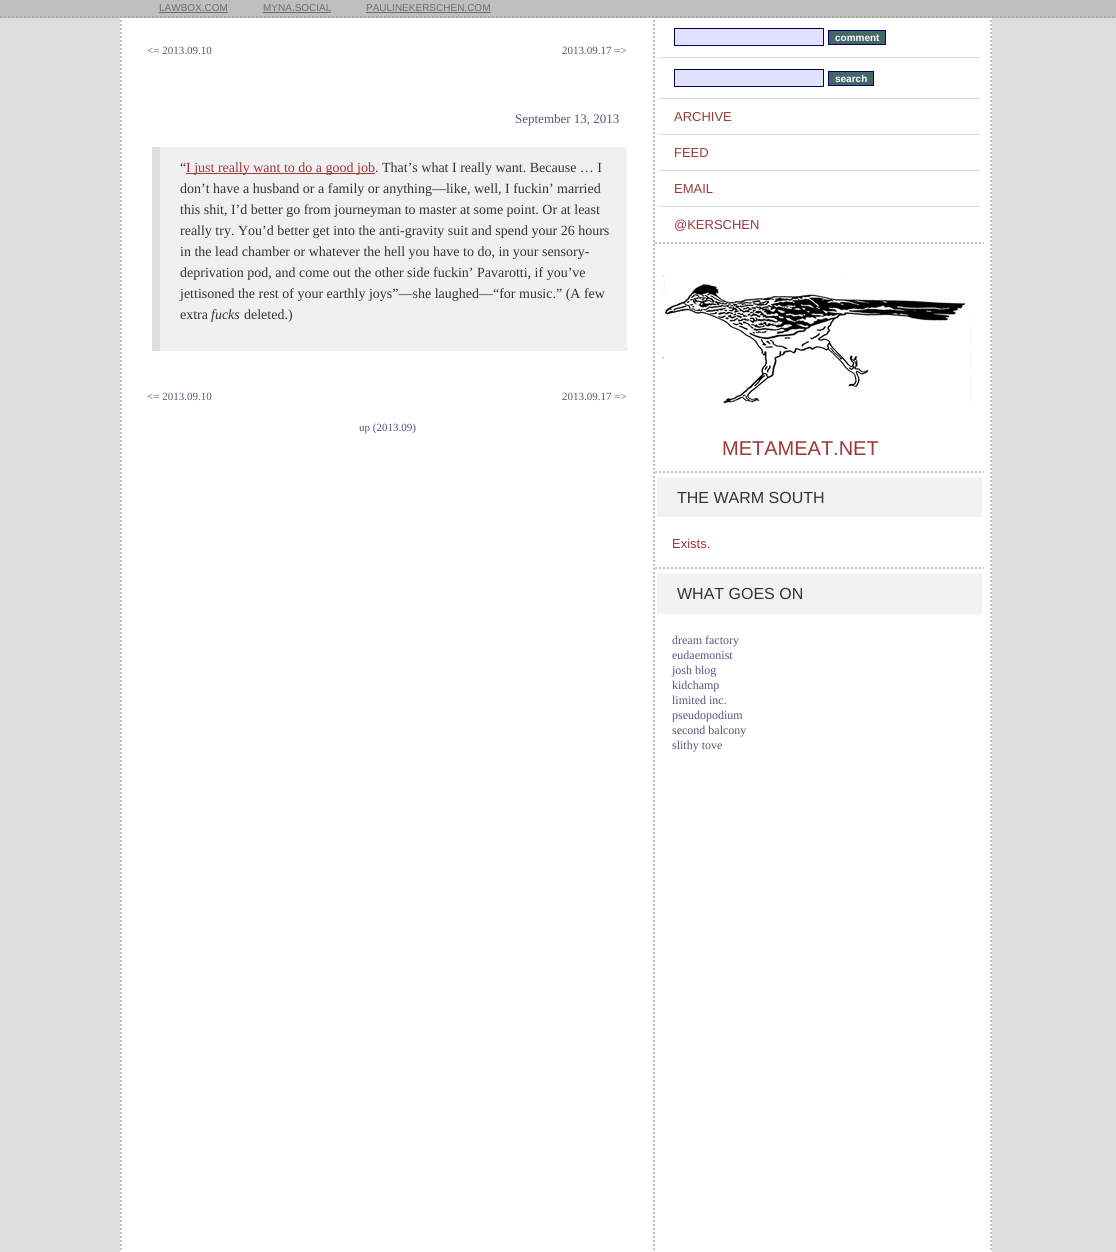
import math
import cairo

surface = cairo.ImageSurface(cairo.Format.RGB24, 1116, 1252)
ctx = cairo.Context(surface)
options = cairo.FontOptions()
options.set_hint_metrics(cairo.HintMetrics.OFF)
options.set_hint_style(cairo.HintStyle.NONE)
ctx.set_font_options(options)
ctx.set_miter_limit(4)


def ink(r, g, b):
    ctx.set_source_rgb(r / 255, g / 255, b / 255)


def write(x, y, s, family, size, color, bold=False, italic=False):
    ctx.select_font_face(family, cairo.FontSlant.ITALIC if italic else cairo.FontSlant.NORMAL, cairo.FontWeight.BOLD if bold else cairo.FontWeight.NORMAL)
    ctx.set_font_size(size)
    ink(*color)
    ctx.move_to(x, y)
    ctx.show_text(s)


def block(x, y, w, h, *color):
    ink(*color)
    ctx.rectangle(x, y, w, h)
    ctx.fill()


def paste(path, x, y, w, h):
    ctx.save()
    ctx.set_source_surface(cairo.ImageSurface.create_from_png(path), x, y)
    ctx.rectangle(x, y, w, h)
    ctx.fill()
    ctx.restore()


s1 = dict(family="Liberation Sans", size=10, color=(110, 110, 110))
s2 = dict(family="Liberation Serif", size=11, color=(85, 85, 119))
s3 = dict(family="Liberation Serif", size=13, color=(85, 85, 119))
s4 = dict(family="Liberation Serif", size=14, color=(51, 51, 51))
s5 = dict(family="Liberation Serif", size=14, color=(156, 56, 56))
s6 = dict(family="Liberation Serif", size=14, color=(51, 51, 51), italic=True)
s7 = dict(family="Liberation Sans", size=10, color=(255, 255, 255), bold=True)
s8 = dict(family="Liberation Sans", size=13, color=(156, 56, 56))
s9 = dict(family="Liberation Sans", size=20, color=(156, 56, 56))
s10 = dict(family="Liberation Sans", size=16, color=(51, 51, 51))
s11 = dict(family="Liberation Serif", size=12, color=(85, 85, 119))

ink(221, 221, 221)
ctx.paint()
block(120, 18, 872, 1234, 255, 255, 255)
ctx.new_path()
ctx.move_to(991, 0)
ctx.line_to(991, 1252)
ink(191, 191, 191)
ctx.set_dash([2, 2])
ctx.stroke()
ctx.new_path()
ctx.move_to(121, 0)
ctx.line_to(121, 1252)
ctx.stroke()
ctx.new_path()
ctx.move_to(654, 0)
ctx.line_to(654, 1252)
ctx.stroke()
block(0, 0, 1116, 18, 191, 191, 191)
ctx.new_path()
ctx.move_to(0, 17)
ctx.line_to(1116, 17)
ink(170, 170, 170)
ctx.stroke()
write(159, 11, "LAWBOX.COM", **s1)
block(159, 12, 69, 1, 110, 110, 110)
write(263, 11, "MYNA.SOCIAL", **s1)
block(263, 12, 68, 1, 110, 110, 110)
write(366, 11, "PAULINEKERSCHEN.COM", **s1)
block(366, 12, 125, 1, 110, 110, 110)
write(147, 54, "<= 2013.09.10", **s2)
write(562, 54, "2013.09.17 =>", **s2)
write(515, 123, "September 13, 2013", **s3)
block(160, 147, 467, 204, 240, 240, 240)
block(152, 147, 8, 204, 221, 221, 221)
write(180, 172, "“", **s4)
block(186, 173, 189, 1, 156, 56, 56)
write(186, 172, "I just really want to do a good job", **s5)
write(375, 172, ". That’s what I really want. Because … I", **s4)
write(180, 193, "don’t have a husband or a family or anything—like, well, I fuckin’ married", **s4)
write(180, 214, "this shit, I’d better go from journeyman to master at some point. Or at least", **s4)
write(180, 235, "really try. You’d better get into the anti-gravity suit and spend your 26 hours", **s4)
write(180, 256, "in the lead chamber or whatever the hell you have to do, in your sensory-", **s4)
write(180, 277, "deprivation pod, and come out the other side fuckin’ Pavarotti, if you’ve", **s4)
write(180, 298, "jettisoned the rest of your earthly joys”—she laughed—“for music.” (A few", **s4)
write(180, 319, "extra", **s4)
write(211, 319, "fucks", **s6)
write(244, 319, "deleted.)", **s4)
write(147, 400, "<= 2013.09.10", **s2)
write(562, 400, "2013.09.17 =>", **s2)
write(359, 431, "up (2013.09)", **s2)
block(675, 29, 148, 16, 224, 224, 255)
block(674, 28, 150, 1, 0, 0, 68)
block(823, 28, 1, 18, 0, 0, 102)
block(674, 45, 150, 1, 0, 0, 102)
block(674, 28, 1, 18, 0, 0, 68)
ink(68, 102, 102)
ctx.rectangle(828.5, 30.5, 57, 14)
ctx.fill_preserve()
ink(0, 0, 102)
ctx.set_line_width(1)
ctx.set_dash([])
ctx.stroke()
write(835, 41, "comment", **s7)
block(659, 57, 321, 1, 216, 216, 216)
block(675, 70, 148, 16, 224, 224, 255)
block(674, 69, 150, 1, 0, 0, 68)
block(823, 69, 1, 18, 0, 0, 102)
block(674, 86, 150, 1, 0, 0, 102)
block(674, 69, 1, 18, 0, 0, 68)
ink(68, 102, 102)
ctx.rectangle(828.5, 71.5, 45, 14)
ctx.fill_preserve()
ink(0, 0, 102)
ctx.stroke()
write(835, 82, "search", **s7)
block(659, 98, 321, 1, 216, 216, 216)
write(674, 121, "ARCHIVE", **s8)
block(659, 134, 321, 1, 216, 216, 216)
write(674, 157, "FEED", **s8)
block(659, 170, 321, 1, 216, 216, 216)
write(674, 193, "EMAIL", **s8)
block(659, 206, 321, 1, 216, 216, 216)
write(674, 229, "@KERSCHEN", **s8)
ctx.new_path()
ctx.move_to(655, 243)
ctx.line_to(984, 243)
ink(191, 191, 191)
ctx.set_line_width(2)
ctx.set_dash([2, 2])
ctx.stroke()
paste("pic1.png", 662, 274, 310, 132)
write(722, 455, "METAMEAT.NET", **s9)
ctx.new_path()
ctx.move_to(655, 472)
ctx.line_to(984, 472)
ink(191, 191, 191)
ctx.stroke()
block(657, 478, 325, 39, 242, 242, 243)
write(677, 503, "THE WARM SOUTH", **s10)
write(672, 548, "Exists.", **s8)
ctx.new_path()
ctx.move_to(655, 568)
ctx.line_to(984, 568)
ink(191, 191, 191)
ctx.stroke()
block(657, 574, 325, 40, 242, 242, 243)
write(677, 599, "WHAT GOES ON", **s10)
write(672, 644, "dream factory", **s11)
write(672, 659, "eudaemonist", **s11)
write(672, 674, "josh blog", **s11)
write(672, 689, "kidchamp", **s11)
write(672, 704, "limited inc.", **s11)
write(672, 719, "pseudopodium", **s11)
write(672, 734, "second balcony", **s11)
write(672, 749, "slithy tove", **s11)
surface.write_to_png("screenshot.png")
